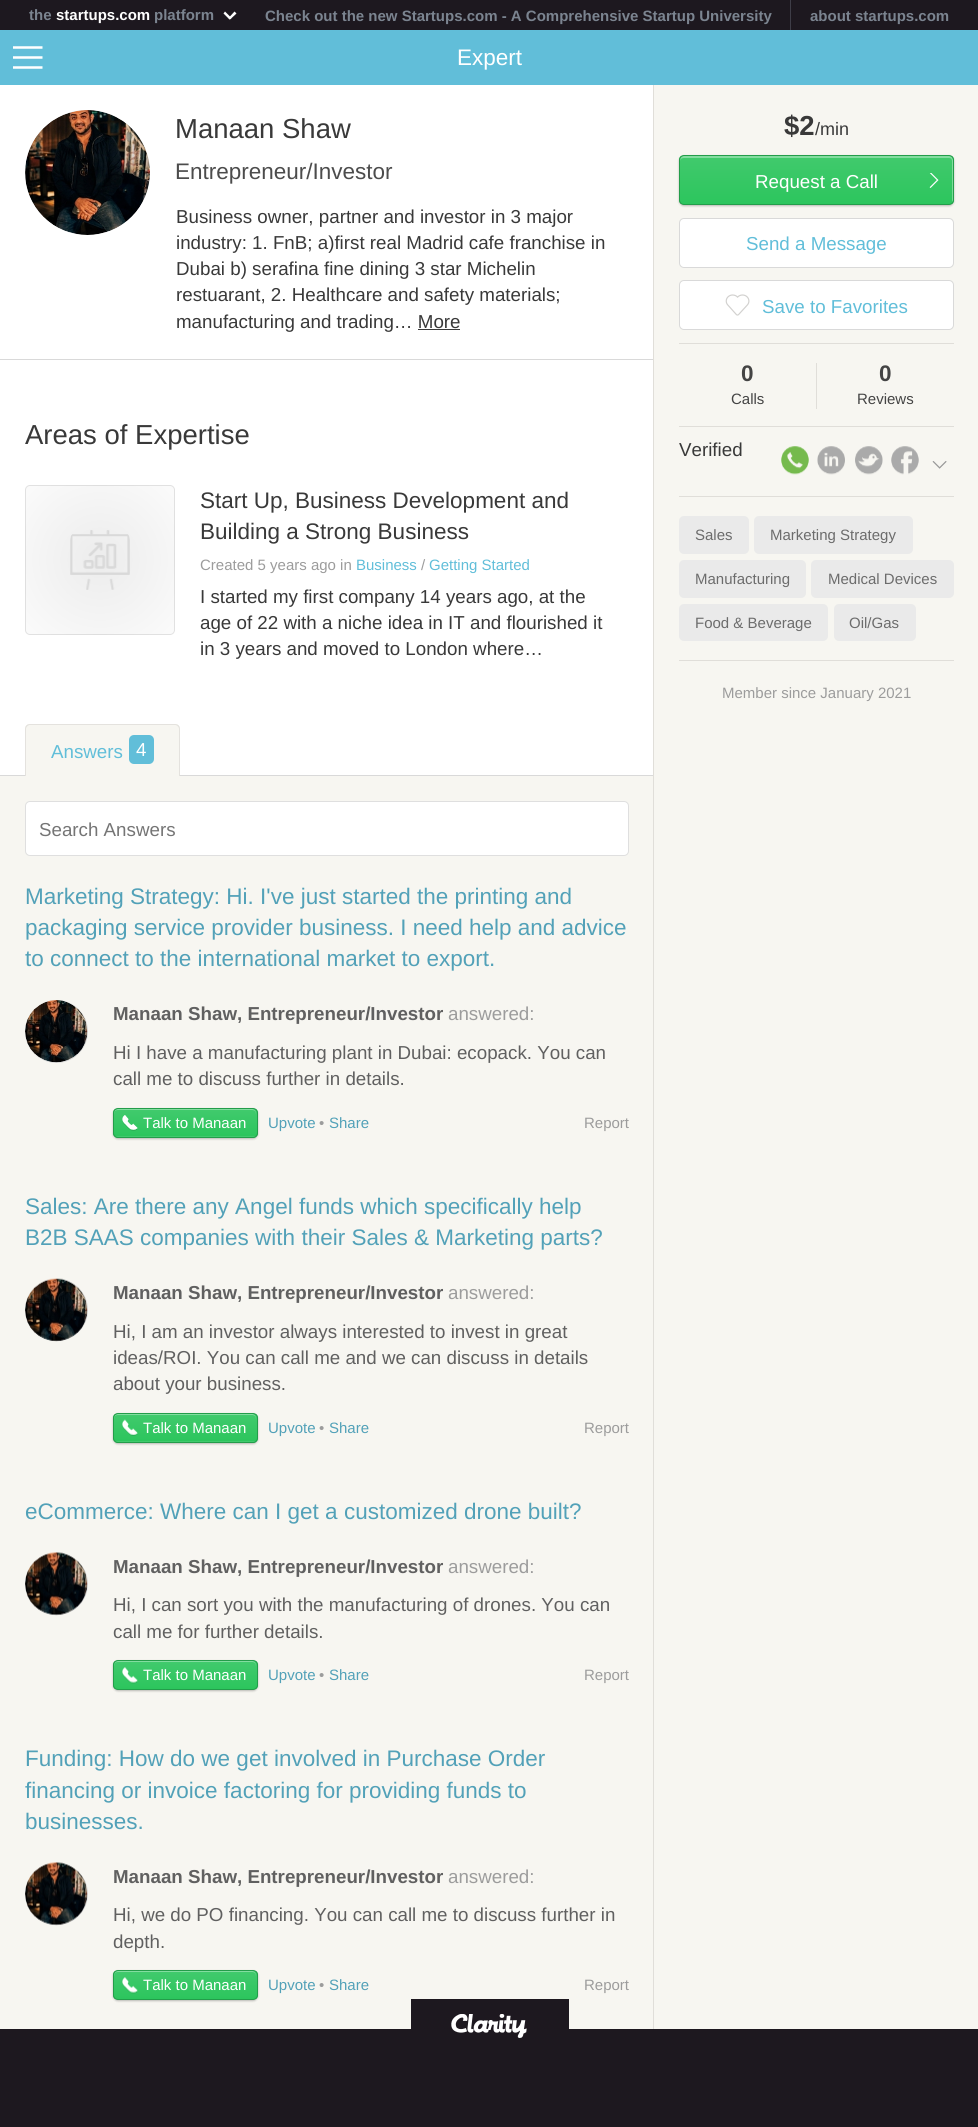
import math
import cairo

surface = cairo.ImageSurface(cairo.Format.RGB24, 978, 2127)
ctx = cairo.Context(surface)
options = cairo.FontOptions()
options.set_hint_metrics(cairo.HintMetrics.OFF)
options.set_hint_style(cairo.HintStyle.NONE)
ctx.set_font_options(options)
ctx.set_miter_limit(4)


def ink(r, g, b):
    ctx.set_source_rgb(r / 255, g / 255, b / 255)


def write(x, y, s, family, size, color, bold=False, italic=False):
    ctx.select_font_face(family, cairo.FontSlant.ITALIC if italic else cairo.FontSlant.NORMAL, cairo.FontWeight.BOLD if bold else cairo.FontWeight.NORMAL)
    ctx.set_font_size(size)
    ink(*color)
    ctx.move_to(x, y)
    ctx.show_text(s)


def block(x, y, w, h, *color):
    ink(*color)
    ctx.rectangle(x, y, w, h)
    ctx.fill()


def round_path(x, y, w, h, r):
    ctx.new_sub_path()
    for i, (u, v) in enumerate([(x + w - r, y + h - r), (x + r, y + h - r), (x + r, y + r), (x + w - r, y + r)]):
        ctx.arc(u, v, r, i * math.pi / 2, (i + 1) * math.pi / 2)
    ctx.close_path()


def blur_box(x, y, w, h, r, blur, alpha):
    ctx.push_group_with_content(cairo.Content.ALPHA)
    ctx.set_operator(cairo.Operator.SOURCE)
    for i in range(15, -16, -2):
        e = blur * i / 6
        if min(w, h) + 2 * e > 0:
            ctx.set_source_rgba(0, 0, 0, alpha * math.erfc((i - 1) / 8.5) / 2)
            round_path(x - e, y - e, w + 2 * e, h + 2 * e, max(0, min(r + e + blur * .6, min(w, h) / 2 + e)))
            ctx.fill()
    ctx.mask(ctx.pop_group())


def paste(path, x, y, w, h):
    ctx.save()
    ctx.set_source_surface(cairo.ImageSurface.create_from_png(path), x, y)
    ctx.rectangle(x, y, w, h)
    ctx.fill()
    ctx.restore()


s1 = dict(family="Liberation Sans", size=15, color=(123, 132, 144), bold=True)
s2 = dict(family="Liberation Sans", size=15, color=(255, 255, 255), bold=True)
s3 = dict(family="Liberation Sans", size=22.5, color=(255, 255, 255))
s4 = dict(family="Liberation Sans", size=27.5, color=(57, 57, 57))
s5 = dict(family="Liberation Sans", size=22.5, color=(76, 76, 76))
s6 = dict(family="Liberation Sans", size=18.75, color=(57, 57, 57))
s7 = dict(family="Liberation Sans", size=27.5, color=(57, 57, 57), bold=True)
s8 = dict(family="Liberation Sans", size=18, color=(57, 57, 57))
s9 = dict(family="Liberation Sans", size=18.75, color=(255, 255, 255))
s10 = dict(family="Liberation Sans", size=18.75, color=(97, 190, 217))
s11 = dict(family="Liberation Sans", size=22.5, color=(68, 68, 68), bold=True)
s12 = dict(family="Liberation Sans", size=15, color=(68, 68, 68))
s13 = dict(family="Liberation Sans", size=15, color=(108, 108, 108))
s14 = dict(family="Liberation Sans", size=15, color=(156, 156, 156))
s15 = dict(family="Liberation Sans", size=22.5, color=(57, 57, 57))
s16 = dict(family="Liberation Sans", size=15, color=(97, 190, 217))
s17 = dict(family="Liberation Sans", size=18.75, color=(117, 117, 117))
s18 = dict(family="Liberation Sans", size=22.5, color=(82, 161, 184))
s19 = dict(family="Liberation Sans", size=18.75, color=(96, 96, 96), bold=True)
s20 = dict(family="Liberation Sans", size=18.75, color=(156, 156, 156))
s21 = dict(family="Liberation Sans", size=18.75, color=(96, 96, 96))
s22 = dict(family="Liberation Sans", size=15, color=(255, 255, 255))
s23 = dict(family="Liberation Sans", size=15, color=(82, 161, 184))

ink(29, 24, 31)
ctx.paint()
write(29, 20, "the", **s1)
write(56, 20, "startups.com", **s2)
write(154, 20, "platform", **s1)
ink(255, 255, 255)
ctx.new_path()
ctx.move_to(231.5, 18)
ctx.line_to(229.5, 19.5)
ctx.line_to(223.5, 13.5)
ctx.line_to(225, 11.5)
ctx.close_path()
ctx.fill()
ctx.new_path()
ctx.move_to(230, 19.5)
ctx.line_to(228.5, 18)
ctx.line_to(234.5, 11.5)
ctx.line_to(236.5, 13.5)
ctx.close_path()
ctx.fill()
block(790, 0, 1, 30, 62, 61, 71)
write(265, 21, "Check out the new Startups.com - A Comprehensive Startup University", **s1)
write(810, 21, "about startups.com", **s1)
block(0, 85, 653, 690, 255, 255, 255)
block(0, 30, 978, 55, 97, 190, 217)
paste("pic1.png", 13, 46, 30, 23)
write(457, 65, "Expert", **s3)
ink(217, 217, 217)
ctx.new_path()
ctx.arc(87.5, 172.5, 62.5, 0, 2 * math.pi)
ctx.fill()
paste("pic2.png", 25, 110, 125, 125)
write(175, 138, "Manaan Shaw", **s4)
write(175, 179, "Entrepreneur/Investor", **s5)
write(176, 223, "Business owner, partner and investor in 3 major", **s6)
write(176, 249, "industry: 1. FnB; a)first real Madrid cafe franchise in", **s6)
write(176, 275, "Dubai b) serafina fine dining 3 star Michelin", **s6)
write(176, 301, "restuarant, 2. Healthcare and safety materials;", **s6)
write(176, 328, "manufacturing and trading… More", **s6)
block(418, 329, 42, 1, 57, 57, 57)
block(654, 85, 324, 1944, 247, 246, 241)
block(653, 85, 1, 1944, 224, 222, 217)
write(784, 135, "$2", **s7)
write(815, 135, "/min", **s8)
ink(0, 0, 0)
blur_box(679, 156, 275, 50, 5, 1, 0.25)
ctx.save()
round_path(679, 155, 275, 50, 5)
ctx.clip()
gradient = cairo.LinearGradient(816, 156, 816, 204)
gradient.add_color_stop_rgba(0, 0.255, 0.792, 0.427, 1)
gradient.add_color_stop_rgba(1, 0.173, 0.773, 0.365, 1)
ctx.set_source(gradient)
ctx.rectangle(679, 156, 275, 48)
ctx.fill()
ctx.restore()
ctx.set_source_rgba(1, 1, 1, 0.35)
ctx.new_path()
ctx.move_to(684, 158)
ctx.line_to(949, 158)
ctx.curve_to(951, 158, 952, 159, 952, 161)
ctx.line_to(952, 203)
ctx.curve_to(952, 202, 953, 201, 953, 200)
ctx.line_to(953, 160)
ctx.curve_to(953, 158, 951, 156, 949, 156)
ctx.line_to(684, 156)
ctx.curve_to(682, 156, 680, 158, 680, 160)
ctx.line_to(680, 161)
ctx.curve_to(680, 159, 682, 158, 684, 158)
ctx.close_path()
ctx.fill()
round_path(679.5, 155.5, 274, 49, 4.5)
ink(35, 157, 74)
ctx.set_line_width(1)
ctx.stroke()
write(755, 188, "Request a Call", **s9)
paste("pic3.png", 929, 173, 10, 15)
round_path(679.5, 218.5, 274, 49, 4.5)
ctx.fill_preserve()
ink(217, 217, 217)
ctx.stroke()
write(746, 250, "Send a Message", **s10)
ink(255, 255, 255)
round_path(679.5, 280.5, 274, 49, 4.5)
ctx.fill_preserve()
ink(217, 217, 217)
ctx.stroke()
paste("pic4.png", 725, 294, 25, 22)
write(762, 313, "Save to Favorites", **s10)
block(679, 343, 275, 1, 224, 222, 217)
block(816, 363, 1, 46, 224, 222, 217)
write(741, 381, "0", **s11)
write(731, 404, "Calls", **s12)
write(879, 381, "0", **s11)
write(857, 404, "Reviews", **s12)
block(679, 426, 275, 1, 224, 222, 217)
write(679, 456, "Verified", **s6)
paste("pic5.png", 781, 446, 28, 29)
paste("pic6.png", 817, 446, 28, 29)
paste("pic7.png", 855, 446, 28, 29)
paste("pic8.png", 891, 446, 28, 29)
paste("pic9.png", 932, 461, 15, 8)
block(679, 496, 275, 1, 224, 222, 217)
ink(234, 234, 234)
round_path(679, 516, 70, 38, 5)
ctx.fill()
write(695, 540, "Sales", **s13)
ink(234, 234, 234)
round_path(754, 516, 159, 38, 5)
ctx.fill()
write(770, 540, "Marketing Strategy", **s13)
ink(234, 234, 234)
round_path(679, 560, 127, 38, 5)
ctx.fill()
write(695, 584, "Manufacturing", **s13)
ink(234, 234, 234)
round_path(811, 560, 143, 38, 5)
ctx.fill()
write(828, 584, "Medical Devices", **s13)
ink(234, 234, 234)
round_path(679, 604, 149, 37, 5)
ctx.fill()
write(695, 628, "Food & Beverage", **s13)
ink(234, 234, 234)
round_path(834, 604, 82, 37, 5)
ctx.fill()
write(849, 628, "Oil/Gas", **s13)
block(679, 660, 275, 1, 224, 222, 217)
write(722, 698, "Member since January 2021", **s14)
block(0, 359, 653, 1, 217, 217, 217)
write(25, 444, "Areas of Expertise", **s4)
gradient = cairo.RadialGradient(100, 560, 0, 100, 560, 106)
gradient.add_color_stop_rgba(0, 0.925, 0.925, 0.925, 1)
gradient.add_color_stop_rgba(1, 0.984, 0.984, 0.984, 1)
ctx.set_source(gradient)
round_path(25, 485, 150, 150, 5)
ctx.fill()
paste("pic10.png", 70, 530, 60, 60)
round_path(25.5, 485.5, 149, 149, 4.5)
ctx.set_source_rgba(0, 0, 0, 0.1)
ctx.stroke()
write(200, 508, "Start Up, Business Development and", **s15)
write(200, 539, "Building a Strong Business", **s15)
write(200, 570, "Created 5 years ago in", **s14)
write(356, 570, "Business", **s16)
write(421, 570, "/", **s14)
write(429, 570, "Getting Started", **s16)
write(200, 603, "I started my first company 14 years ago, at the", **s6)
write(200, 629, "age of 22 with a niche idea in IT and flourished it", **s6)
write(200, 655, "in 3 years and moved to London where…", **s6)
block(0, 775, 653, 1, 217, 217, 217)
ink(247, 246, 241)
ctx.new_path()
ctx.move_to(30, 724)
ctx.line_to(175, 724)
ctx.curve_to(178, 724, 180, 726, 180, 729)
ctx.line_to(180, 776)
ctx.line_to(25, 776)
ctx.line_to(25, 729)
ctx.curve_to(25, 726, 27, 724, 30, 724)
ctx.close_path()
ctx.fill()
ink(228, 226, 222)
ctx.set_fill_rule(cairo.FillRule.EVEN_ODD)
ctx.new_path()
ctx.move_to(30, 724)
ctx.line_to(175, 724)
ctx.curve_to(178, 724, 180, 726, 180, 729)
ctx.line_to(180, 776)
ctx.line_to(25, 776)
ctx.line_to(25, 729)
ctx.curve_to(25, 726, 27, 724, 30, 724)
ctx.close_path()
ctx.move_to(30, 725)
ctx.line_to(175, 725)
ctx.curve_to(177, 725, 179, 727, 179, 729)
ctx.line_to(179, 776)
ctx.line_to(26, 776)
ctx.line_to(26, 729)
ctx.curve_to(26, 727, 28, 725, 30, 725)
ctx.close_path()
ctx.fill()
write(51, 758, "Answers", **s10)
round_path(129, 735, 25, 29, 5)
ctx.fill()
write(136, 756, "4", **s9)
block(0, 776, 653, 1253, 247, 246, 241)
ink(255, 255, 255)
round_path(25.5, 801.5, 603, 54, 4.5)
ctx.fill_preserve()
ink(223, 223, 223)
ctx.stroke()
write(39, 836, "Search Answers", **s17)
write(25, 904, "Marketing Strategy: Hi. I've just started the printing and", **s18)
write(25, 935, "packaging service provider business. I need help and advice", **s18)
write(25, 966, "to connect to the international market to export.", **s18)
ink(217, 217, 217)
ctx.new_path()
ctx.arc(56.5, 1031.5, 31.5, 0, 2 * math.pi)
ctx.fill()
paste("pic11.png", 25, 1000, 63, 63)
write(113, 1020, "Manaan Shaw, Entrepreneur/Investor", **s19)
write(448, 1020, "answered:", **s20)
write(113, 1059, "Hi I have a manufacturing plant in Dubai: ecopack. You can", **s21)
write(113, 1085, "call me to discuss further in details.", **s21)
ink(0, 0, 0)
blur_box(113, 1109, 145, 30, 5, 1, 0.25)
ctx.save()
ctx.set_fill_rule(cairo.FillRule.WINDING)
round_path(113, 1108, 145, 30, 5)
ctx.clip()
gradient = cairo.LinearGradient(185, 1109, 185, 1136)
gradient.add_color_stop_rgba(0, 0.255, 0.792, 0.427, 1)
gradient.add_color_stop_rgba(1, 0.173, 0.773, 0.365, 1)
ctx.set_source(gradient)
ctx.rectangle(113, 1109, 145, 27)
ctx.fill()
gradient = cairo.LinearGradient(185, 1136, 185, 1164)
gradient.add_color_stop_rgba(0, 0.255, 0.792, 0.427, 1)
gradient.add_color_stop_rgba(1, 0.173, 0.773, 0.365, 1)
ctx.set_source(gradient)
ctx.rectangle(113, 1136, 145, 2)
ctx.fill()
ctx.restore()
ink(131, 221, 160)
ctx.set_fill_rule(cairo.FillRule.WINDING)
ctx.new_path()
ctx.move_to(118, 1110)
ctx.line_to(252, 1110)
ctx.curve_to(255, 1110, 256, 1112, 256, 1114)
ctx.line_to(256, 1113)
ctx.curve_to(256, 1111, 254, 1109, 252, 1109)
ctx.line_to(118, 1109)
ctx.curve_to(116, 1109, 114, 1111, 114, 1113)
ctx.line_to(114, 1114)
ctx.curve_to(114, 1112, 115, 1110, 118, 1110)
ctx.close_path()
ctx.fill()
round_path(113.5, 1108.5, 144, 29, 4.5)
ink(35, 157, 74)
ctx.stroke()
paste("pic12.png", 122, 1115, 16, 16)
write(143, 1128, "Talk to Manaan", **s22)
write(268, 1128, "Upvote", **s23)
write(319, 1128, "•", **s14)
write(329, 1128, "Share", **s23)
write(584, 1128, "Report", **s14)
write(25, 1214, "Sales: Are there any Angel funds which specifically help", **s18)
write(25, 1245, "B2B SAAS companies with their Sales & Marketing parts?", **s18)
ink(217, 217, 217)
round_path(25, 1279, 63, 62, 31)
ctx.fill()
paste("pic13.png", 25, 1278, 63, 64)
write(113, 1299, "Manaan Shaw, Entrepreneur/Investor", **s19)
write(448, 1299, "answered:", **s20)
write(113, 1338, "Hi, I am an investor always interested to invest in great", **s21)
write(113, 1364, "ideas/ROI. You can call me and we can discuss in details", **s21)
write(113, 1390, "about your business.", **s21)
ink(0, 0, 0)
blur_box(113, 1414, 145, 30, 5, 1, 0.25)
ctx.save()
round_path(113, 1413, 145, 30, 5)
ctx.clip()
gradient = cairo.LinearGradient(185, 1414, 185, 1441)
gradient.add_color_stop_rgba(0, 0.255, 0.792, 0.427, 1)
gradient.add_color_stop_rgba(1, 0.173, 0.773, 0.365, 1)
ctx.set_source(gradient)
ctx.rectangle(113, 1414, 145, 27)
ctx.fill()
gradient = cairo.LinearGradient(185, 1441, 185, 1469)
gradient.add_color_stop_rgba(0, 0.255, 0.792, 0.427, 1)
gradient.add_color_stop_rgba(1, 0.173, 0.773, 0.365, 1)
ctx.set_source(gradient)
ctx.rectangle(113, 1441, 145, 2)
ctx.fill()
ctx.restore()
ink(131, 221, 160)
ctx.new_path()
ctx.move_to(118, 1415)
ctx.line_to(252, 1415)
ctx.curve_to(255, 1415, 256, 1417, 256, 1419)
ctx.line_to(256, 1418)
ctx.curve_to(256, 1416, 254, 1414, 252, 1414)
ctx.line_to(118, 1414)
ctx.curve_to(116, 1414, 114, 1416, 114, 1418)
ctx.line_to(114, 1419)
ctx.curve_to(114, 1417, 115, 1415, 118, 1415)
ctx.close_path()
ctx.fill()
round_path(113.5, 1413.5, 144, 29, 4.5)
ink(35, 157, 74)
ctx.stroke()
paste("pic14.png", 122, 1419, 16, 17)
write(143, 1433, "Talk to Manaan", **s22)
write(268, 1433, "Upvote", **s23)
write(319, 1433, "•", **s14)
write(329, 1433, "Share", **s23)
write(584, 1433, "Report", **s14)
write(25, 1519, "eCommerce: Where can I get a customized drone built?", **s18)
ink(217, 217, 217)
round_path(25, 1553, 63, 62, 31)
ctx.fill()
paste("pic15.png", 25, 1552, 63, 64)
write(113, 1573, "Manaan Shaw, Entrepreneur/Investor", **s19)
write(448, 1573, "answered:", **s20)
write(113, 1611, "Hi, I can sort you with the manufacturing of drones. You can", **s21)
write(113, 1638, "call me for further details.", **s21)
ink(0, 0, 0)
blur_box(113, 1661, 145, 30, 5, 1, 0.25)
ctx.save()
round_path(113, 1660, 145, 30, 5)
ctx.clip()
gradient = cairo.LinearGradient(185, 1661, 185, 1689)
gradient.add_color_stop_rgba(0, 0.255, 0.792, 0.427, 1)
gradient.add_color_stop_rgba(1, 0.173, 0.773, 0.365, 1)
ctx.set_source(gradient)
ctx.rectangle(113, 1661, 145, 28)
ctx.fill()
ctx.restore()
ink(131, 221, 160)
ctx.new_path()
ctx.move_to(118, 1662)
ctx.line_to(252, 1662)
ctx.curve_to(255, 1662, 256, 1664, 256, 1666)
ctx.line_to(256, 1665)
ctx.curve_to(256, 1663, 254, 1661, 252, 1661)
ctx.line_to(118, 1661)
ctx.curve_to(116, 1661, 114, 1663, 114, 1665)
ctx.line_to(114, 1666)
ctx.curve_to(114, 1664, 115, 1662, 118, 1662)
ctx.close_path()
ctx.fill()
round_path(113.5, 1660.5, 144, 29, 4.5)
ink(35, 157, 74)
ctx.stroke()
paste("pic16.png", 122, 1667, 16, 17)
write(143, 1680, "Talk to Manaan", **s22)
write(268, 1680, "Upvote", **s23)
write(319, 1680, "•", **s14)
write(329, 1680, "Share", **s23)
write(584, 1680, "Report", **s14)
write(25, 1766, "Funding: How do we get involved in Purchase Order", **s18)
write(25, 1798, "financing or invoice factoring for providing funds to", **s18)
write(25, 1829, "businesses.", **s18)
ink(217, 217, 217)
round_path(25, 1863, 63, 62, 31)
ctx.fill()
paste("pic15.png", 25, 1862, 63, 64)
write(113, 1883, "Manaan Shaw, Entrepreneur/Investor", **s19)
write(448, 1883, "answered:", **s20)
write(113, 1921, "Hi, we do PO financing. You can call me to discuss further in", **s21)
write(113, 1948, "depth.", **s21)
ink(0, 0, 0)
blur_box(113, 1971, 145, 30, 5, 1, 0.25)
ctx.save()
round_path(113, 1970, 145, 30, 5)
ctx.clip()
gradient = cairo.LinearGradient(185, 1971, 185, 1999)
gradient.add_color_stop_rgba(0, 0.255, 0.792, 0.427, 1)
gradient.add_color_stop_rgba(1, 0.173, 0.773, 0.365, 1)
ctx.set_source(gradient)
ctx.rectangle(113, 1971, 145, 28)
ctx.fill()
ctx.restore()
ink(131, 221, 160)
ctx.new_path()
ctx.move_to(118, 1972)
ctx.line_to(252, 1972)
ctx.curve_to(255, 1972, 256, 1974, 256, 1976)
ctx.line_to(256, 1975)
ctx.curve_to(256, 1973, 254, 1971, 252, 1971)
ctx.line_to(118, 1971)
ctx.curve_to(116, 1971, 114, 1973, 114, 1975)
ctx.line_to(114, 1976)
ctx.curve_to(114, 1974, 115, 1972, 118, 1972)
ctx.close_path()
ctx.fill()
round_path(113.5, 1970.5, 144, 29, 4.5)
ink(35, 157, 74)
ctx.stroke()
paste("pic16.png", 122, 1977, 16, 17)
write(143, 1990, "Talk to Manaan", **s22)
write(268, 1990, "Upvote", **s23)
write(319, 1990, "•", **s14)
write(329, 1990, "Share", **s23)
write(584, 1990, "Report", **s14)
block(411, 1999, 158, 30, 29, 24, 31)
paste("pic17.png", 451, 2014, 76, 24)
surface.write_to_png("screenshot.png")
